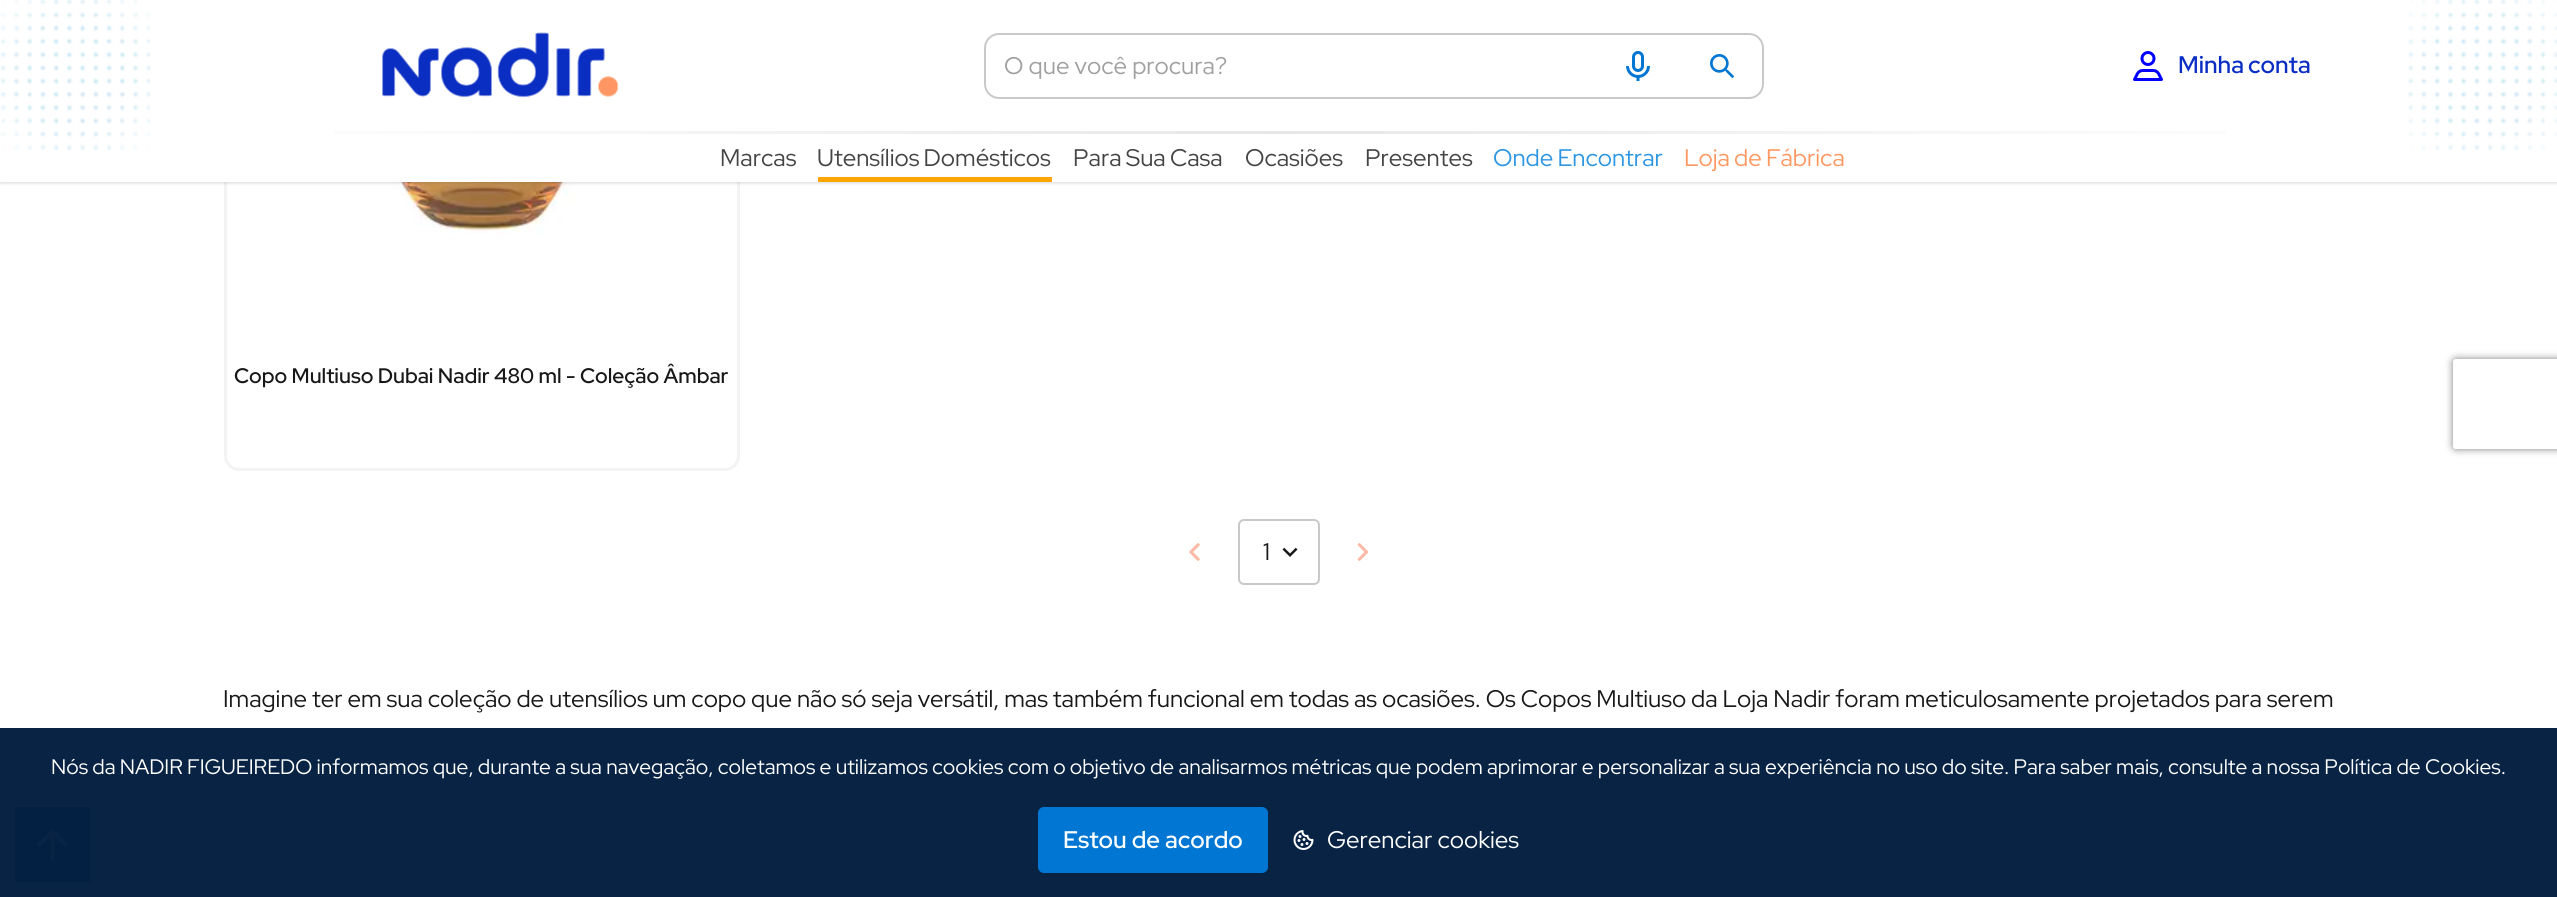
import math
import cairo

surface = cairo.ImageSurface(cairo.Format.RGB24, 2557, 897)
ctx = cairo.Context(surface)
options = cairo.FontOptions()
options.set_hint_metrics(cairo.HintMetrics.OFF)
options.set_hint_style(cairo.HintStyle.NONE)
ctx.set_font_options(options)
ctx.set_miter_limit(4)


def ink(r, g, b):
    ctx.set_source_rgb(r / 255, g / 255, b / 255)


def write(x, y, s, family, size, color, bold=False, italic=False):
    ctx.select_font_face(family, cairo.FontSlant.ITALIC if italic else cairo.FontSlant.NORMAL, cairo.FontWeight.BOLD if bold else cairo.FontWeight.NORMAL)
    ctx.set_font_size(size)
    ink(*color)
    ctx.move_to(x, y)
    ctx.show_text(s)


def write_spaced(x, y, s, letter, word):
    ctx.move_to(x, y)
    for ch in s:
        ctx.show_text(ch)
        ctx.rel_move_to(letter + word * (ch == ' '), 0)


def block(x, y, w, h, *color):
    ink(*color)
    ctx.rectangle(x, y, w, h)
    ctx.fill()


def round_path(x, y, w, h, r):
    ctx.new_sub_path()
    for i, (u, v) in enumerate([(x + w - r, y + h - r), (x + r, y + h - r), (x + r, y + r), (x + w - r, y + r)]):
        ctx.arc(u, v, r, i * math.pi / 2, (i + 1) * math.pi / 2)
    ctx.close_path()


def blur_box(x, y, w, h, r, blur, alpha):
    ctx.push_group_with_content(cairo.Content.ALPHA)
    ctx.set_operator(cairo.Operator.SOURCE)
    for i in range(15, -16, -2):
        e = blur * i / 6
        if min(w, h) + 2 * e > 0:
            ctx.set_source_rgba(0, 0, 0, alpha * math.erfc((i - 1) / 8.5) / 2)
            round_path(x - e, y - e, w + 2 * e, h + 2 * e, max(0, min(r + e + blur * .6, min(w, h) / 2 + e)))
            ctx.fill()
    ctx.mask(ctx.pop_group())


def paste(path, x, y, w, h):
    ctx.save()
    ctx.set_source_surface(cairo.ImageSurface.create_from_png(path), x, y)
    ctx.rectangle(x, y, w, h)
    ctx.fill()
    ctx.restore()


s1 = dict(family="Red Hat Display", size=24, color=(160, 160, 160))
s2 = dict(family="Red Hat Display", size=24, color=(68, 68, 68))
s3 = dict(family="Red Hat Display SemiBold", size=21, color=(24, 24, 24))
s4 = dict(family="Red Hat Display", size=24, color=(24, 24, 24))
s5 = dict(family="Red Hat Display SemiBold", size=24, color=(255, 255, 255))
s6 = dict(family="Red Hat Display", size=24, color=(255, 255, 255))

ink(255, 255, 255)
ctx.paint()
round_path(225.5, -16.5, 513, 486, 13.5)
ink(243, 243, 243)
ctx.set_line_width(3)
ctx.stroke()
paste("pic7.png", 390, 182, 190, 52)
ink(0, 0, 0)
blur_box(0, 2, 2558, 181, 0, 1.5, 0.06)
blur_box(0, 2, 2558, 181, 0, 2, 0.1)
block(0, 0, 2557, 182, 255, 255, 255)
paste("pic1.png", 0, 0, 150, 150)
paste("pic2.png", 382, 32, 237, 66)
round_path(985, 34, 778, 64, 14)
ink(201, 201, 201)
ctx.set_line_width(2)
ctx.stroke()
write(1004, 74, "O que você procura?", **s1)
paste("pic3.png", 1626, 51, 24, 30)
paste("pic4.png", 1710, 54, 24, 24)
paste("pic5.png", 2133, 51, 30, 30)
ctx.select_font_face("Red Hat Display SemiBold")
ink(10, 45, 195)
write_spaced(2178, 73, "Minha conta", 0, -1)
gradient = cairo.LinearGradient(224, 132, 2336, 132)
gradient.add_color_stop_rgba(0, 1, 1, 1, 1)
gradient.add_color_stop_rgba(0.5, 0.906, 0.906, 0.906, 1)
gradient.add_color_stop_rgba(1, 1, 1, 1, 1)
ctx.set_source(gradient)
ctx.rectangle(334, 131, 1892, 3)
ctx.fill()
write(720, 166, "Marcas", **s2)
block(818, 177, 234, 5, 255, 165, 0)
ink(68, 68, 68)
write_spaced(817, 166, "Utensílios Domésticos", 0, -1)
write_spaced(1073, 166, "Para Sua Casa", 0, -1)
write(1245, 166, "Ocasiões", **s2)
write(1365, 166, "Presentes", **s2)
ink(45, 150, 227)
write_spaced(1493, 166, "Onde Encontrar", 0, -1)
ink(255, 151, 97)
write_spaced(1684, 166, "Loja de Fábrica", 0, -1)
paste("pic6.png", 2407, 0, 150, 150)
write(234, 383, "Copo Multiuso Dubai Nadir 480 ml - Coleção Âmbar", **s3)
paste("pic8.png", 1189, 543, 11, 18)
round_path(1239, 520, 80, 64, 5)
ink(201, 201, 201)
ctx.stroke()
write(1263, 560, "1", **s4)
paste("pic9.png", 1282, 547, 16, 10)
paste("pic10.png", 1357, 543, 11, 18)
write_spaced(223, 707, "Imagine ter em sua coleção de utensílios um copo que não só seja versátil, mas também funcional em todas as ocasiões. Os Copos Multiuso da Loja Nadir foram meticulosamente projetados para serem", 0, -0.25)
block(15, 807, 75, 75, 3, 45, 96)
ink(255, 255, 255)
ctx.new_path()
ctx.move_to(36.5, 844.5)
ctx.line_to(39.5, 847.5)
ctx.line_to(50.5, 836)
ctx.line_to(50.5, 860.5)
ctx.line_to(54.5, 860.5)
ctx.line_to(54.5, 836)
ctx.line_to(65.5, 847.5)
ctx.line_to(68.5, 844.5)
ctx.line_to(52.5, 828.5)
ctx.close_path()
ctx.fill()
ctx.set_source_rgba(0.012, 0.122, 0.255, 0.98)
ctx.rectangle(0, 728, 2557, 169)
ctx.fill()
ctx.set_font_size(21)
ink(255, 255, 255)
write_spaced(51, 774, "Nós da NADIR FIGUEIREDO informamos que, durante a sua navegação, coletamos e utilizamos cookies com o objetivo de analisarmos métricas que podem aprimorar e personalizar a sua experiência no uso do site. Para saber mais, consulte a nossa Política de Cookies.", 0, -0.3)
ink(1, 118, 211)
round_path(1038, 807, 230, 66, 6)
ctx.fill()
write(1063, 848, "Estou de acordo", **s5)
paste("pic11.png", 1293, 830, 21, 20)
write(1327, 848, "Gerenciar cookies", **s6)
ctx.save()
ctx.set_fill_rule(cairo.FillRule.EVEN_ODD)
ctx.new_path()
ctx.move_to(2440, 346)
ctx.line_to(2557, 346)
ctx.line_to(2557, 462)
ctx.line_to(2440, 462)
ctx.close_path()
ctx.move_to(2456, 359)
ctx.line_to(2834, 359)
ctx.curve_to(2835.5, 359, 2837, 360.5, 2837, 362)
ctx.line_to(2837, 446)
ctx.curve_to(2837, 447.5, 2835.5, 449, 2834, 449)
ctx.line_to(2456, 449)
ctx.curve_to(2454.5, 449, 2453, 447.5, 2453, 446)
ctx.line_to(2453, 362)
ctx.curve_to(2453, 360.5, 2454.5, 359, 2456, 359)
ctx.close_path()
ctx.clip()
ink(128, 128, 128)
blur_box(2453, 359, 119, 90, 3, 4, 1)
ctx.restore()
surface.write_to_png("screenshot.png")
